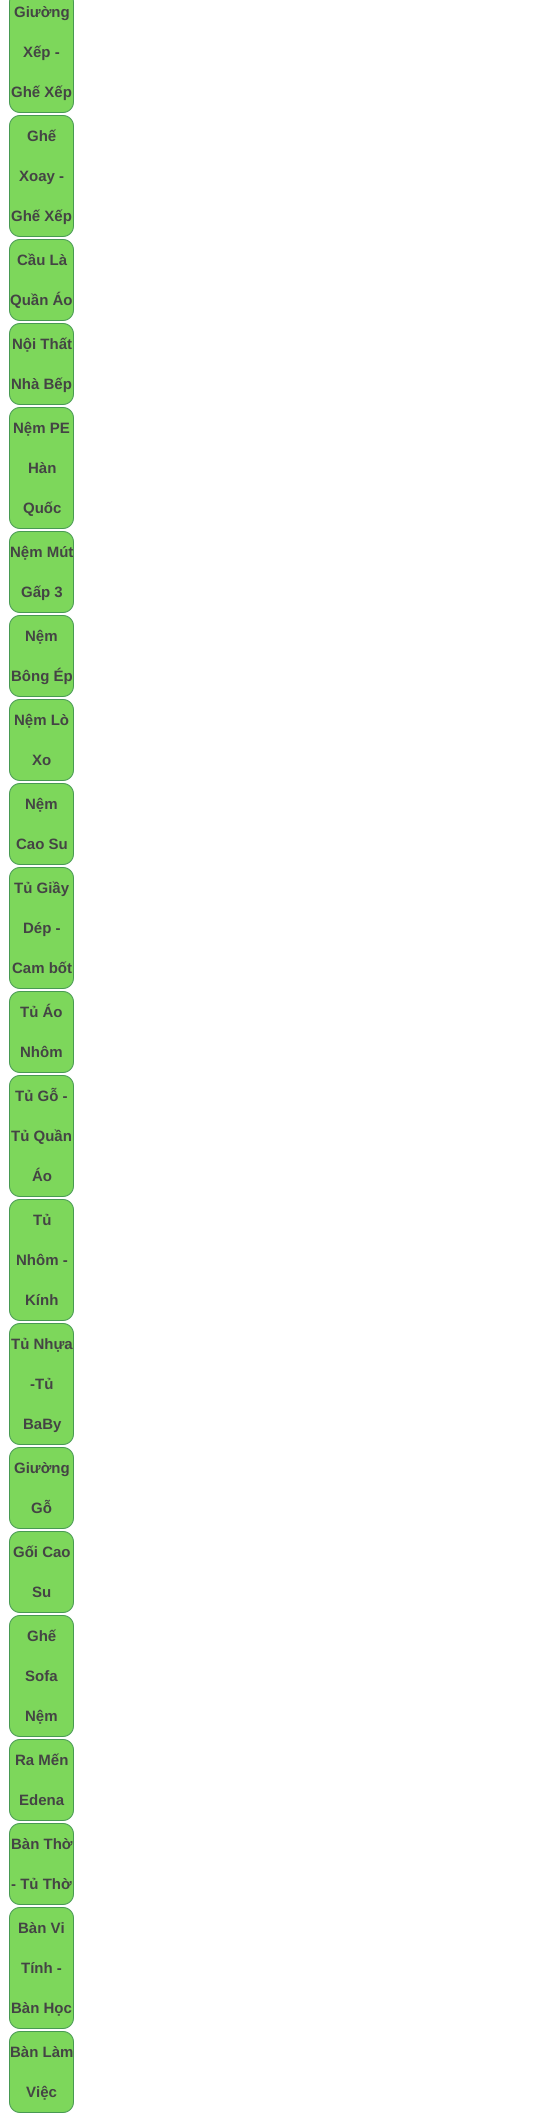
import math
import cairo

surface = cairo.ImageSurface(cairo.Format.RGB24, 560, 2115)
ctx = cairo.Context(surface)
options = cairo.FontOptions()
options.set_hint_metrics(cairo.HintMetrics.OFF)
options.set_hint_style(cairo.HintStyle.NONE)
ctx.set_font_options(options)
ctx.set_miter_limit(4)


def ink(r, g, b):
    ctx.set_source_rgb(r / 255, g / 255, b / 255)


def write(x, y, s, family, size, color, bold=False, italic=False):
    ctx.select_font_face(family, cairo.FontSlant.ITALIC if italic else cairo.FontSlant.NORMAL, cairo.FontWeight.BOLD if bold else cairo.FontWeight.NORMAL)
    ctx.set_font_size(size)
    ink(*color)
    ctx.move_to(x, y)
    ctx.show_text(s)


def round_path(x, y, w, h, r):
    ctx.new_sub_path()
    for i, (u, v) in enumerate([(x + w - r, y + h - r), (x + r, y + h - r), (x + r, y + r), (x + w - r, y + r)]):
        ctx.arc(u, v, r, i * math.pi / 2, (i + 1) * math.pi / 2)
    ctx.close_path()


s1 = dict(family="Liberation Sans", size=15, color=(68, 68, 68), bold=True)

ink(255, 255, 255)
ctx.paint()
ink(125, 215, 91)
round_path(9.5, -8.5, 64, 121, 10.5)
ctx.fill_preserve()
ink(71, 153, 81)
ctx.set_line_width(1)
ctx.stroke()
write(14, 17, "Giường", **s1)
write(23, 57, "Xếp -", **s1)
write(11, 97, "Ghế Xếp", **s1)
ink(125, 215, 91)
round_path(9.5, 115.5, 64, 121, 10.5)
ctx.fill_preserve()
ink(71, 153, 81)
ctx.stroke()
write(27, 141, "Ghế", **s1)
write(19, 181, "Xoay -", **s1)
write(11, 221, "Ghế Xếp", **s1)
ink(125, 215, 91)
round_path(9.5, 239.5, 64, 81, 10.5)
ctx.fill_preserve()
ink(71, 153, 81)
ctx.stroke()
write(17, 265, "Cầu Là", **s1)
write(10, 305, "Quần Áo", **s1)
ink(125, 215, 91)
round_path(9.5, 323.5, 64, 81, 10.5)
ctx.fill_preserve()
ink(71, 153, 81)
ctx.stroke()
write(12, 349, "Nội Thất", **s1)
write(11, 389, "Nhà Bếp", **s1)
ink(125, 215, 91)
round_path(9.5, 407.5, 64, 121, 10.5)
ctx.fill_preserve()
ink(71, 153, 81)
ctx.stroke()
write(13, 433, "Nệm PE", **s1)
write(28, 473, "Hàn", **s1)
write(23, 513, "Quốc", **s1)
ink(125, 215, 91)
round_path(9.5, 531.5, 64, 81, 10.5)
ctx.fill_preserve()
ink(71, 153, 81)
ctx.stroke()
write(10, 557, "Nệm Mút", **s1)
write(21, 597, "Gấp 3", **s1)
ink(125, 215, 91)
round_path(9.5, 615.5, 64, 81, 10.5)
ctx.fill_preserve()
ink(71, 153, 81)
ctx.stroke()
write(25, 641, "Nệm", **s1)
write(11, 681, "Bông Ép", **s1)
ink(125, 215, 91)
round_path(9.5, 699.5, 64, 81, 10.5)
ctx.fill_preserve()
ink(71, 153, 81)
ctx.stroke()
write(14, 725, "Nệm Lò", **s1)
write(32, 765, "Xo", **s1)
ink(125, 215, 91)
round_path(9.5, 783.5, 64, 81, 10.5)
ctx.fill_preserve()
ink(71, 153, 81)
ctx.stroke()
write(25, 809, "Nệm", **s1)
write(16, 849, "Cao Su", **s1)
ink(125, 215, 91)
round_path(9.5, 867.5, 64, 121, 10.5)
ctx.fill_preserve()
ink(71, 153, 81)
ctx.stroke()
write(14, 893, "Tủ Giầy", **s1)
write(23, 933, "Dép -", **s1)
write(12, 973, "Cam bốt", **s1)
ink(125, 215, 91)
round_path(9.5, 991.5, 64, 81, 10.5)
ctx.fill_preserve()
ink(71, 153, 81)
ctx.stroke()
write(20, 1017, "Tủ Áo", **s1)
write(20, 1057, "Nhôm", **s1)
ink(125, 215, 91)
round_path(9.5, 1075.5, 64, 121, 10.5)
ctx.fill_preserve()
ink(71, 153, 81)
ctx.stroke()
write(15, 1101, "Tủ Gỗ -", **s1)
write(11, 1141, "Tủ Quần", **s1)
write(32, 1181, "Áo", **s1)
ink(125, 215, 91)
round_path(9.5, 1199.5, 64, 121, 10.5)
ctx.fill_preserve()
ink(71, 153, 81)
ctx.stroke()
write(33, 1225, "Tủ", **s1)
write(16, 1265, "Nhôm -", **s1)
write(25, 1305, "Kính", **s1)
ink(125, 215, 91)
round_path(9.5, 1323.5, 64, 121, 10.5)
ctx.fill_preserve()
ink(71, 153, 81)
ctx.stroke()
write(11, 1349, "Tủ Nhựa", **s1)
write(30, 1389, "-Tủ", **s1)
write(23, 1429, "BaBy", **s1)
ink(125, 215, 91)
round_path(9.5, 1447.5, 64, 81, 10.5)
ctx.fill_preserve()
ink(71, 153, 81)
ctx.stroke()
write(14, 1473, "Giường", **s1)
write(31, 1513, "Gỗ", **s1)
ink(125, 215, 91)
round_path(9.5, 1531.5, 64, 81, 10.5)
ctx.fill_preserve()
ink(71, 153, 81)
ctx.stroke()
write(13, 1557, "Gối Cao", **s1)
write(32, 1597, "Su", **s1)
ink(125, 215, 91)
round_path(9.5, 1615.5, 64, 121, 10.5)
ctx.fill_preserve()
ink(71, 153, 81)
ctx.stroke()
write(27, 1641, "Ghế", **s1)
write(25, 1681, "Sofa", **s1)
write(25, 1721, "Nệm", **s1)
ink(125, 215, 91)
round_path(9.5, 1739.5, 64, 81, 10.5)
ctx.fill_preserve()
ink(71, 153, 81)
ctx.stroke()
write(15, 1765, "Ra Mến", **s1)
write(19, 1805, "Edena", **s1)
ink(125, 215, 91)
round_path(9.5, 1823.5, 64, 81, 10.5)
ctx.fill_preserve()
ink(71, 153, 81)
ctx.stroke()
write(11, 1849, "Bàn Thờ", **s1)
write(11, 1889, "- Tủ Thờ", **s1)
ink(125, 215, 91)
round_path(9.5, 1907.5, 64, 121, 10.5)
ctx.fill_preserve()
ink(71, 153, 81)
ctx.stroke()
write(18, 1933, "Bàn Vi", **s1)
write(21, 1973, "Tính -", **s1)
write(11, 2013, "Bàn Học", **s1)
ink(125, 215, 91)
round_path(9.5, 2031.5, 64, 81, 10.5)
ctx.fill_preserve()
ink(71, 153, 81)
ctx.stroke()
write(10, 2057, "Bàn Làm", **s1)
write(26, 2097, "Việc", **s1)
surface.write_to_png("screenshot.png")
